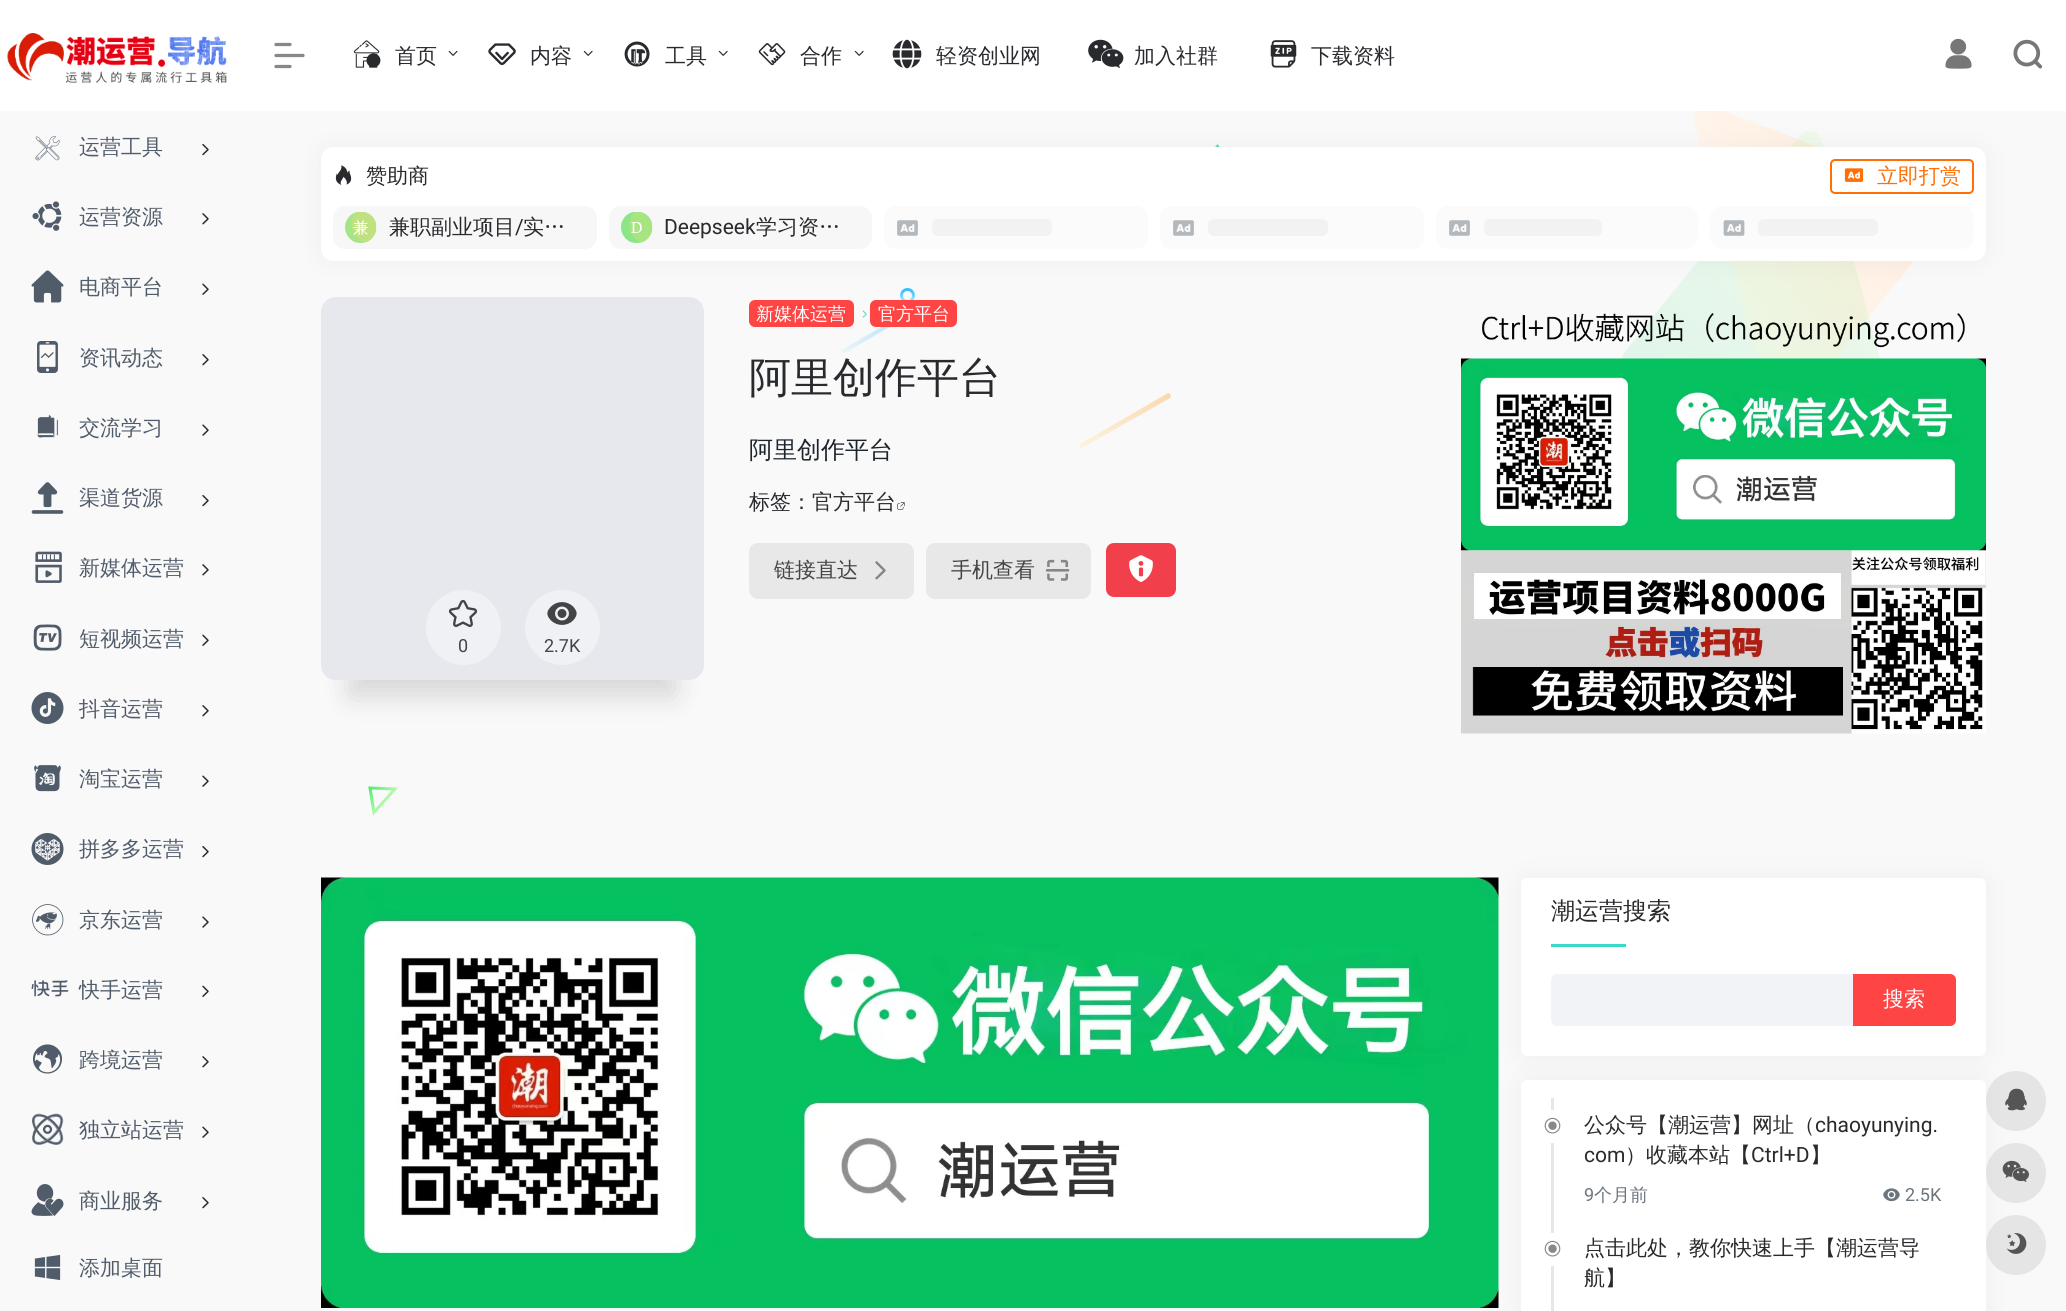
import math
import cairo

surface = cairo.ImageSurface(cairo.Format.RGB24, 2066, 1311)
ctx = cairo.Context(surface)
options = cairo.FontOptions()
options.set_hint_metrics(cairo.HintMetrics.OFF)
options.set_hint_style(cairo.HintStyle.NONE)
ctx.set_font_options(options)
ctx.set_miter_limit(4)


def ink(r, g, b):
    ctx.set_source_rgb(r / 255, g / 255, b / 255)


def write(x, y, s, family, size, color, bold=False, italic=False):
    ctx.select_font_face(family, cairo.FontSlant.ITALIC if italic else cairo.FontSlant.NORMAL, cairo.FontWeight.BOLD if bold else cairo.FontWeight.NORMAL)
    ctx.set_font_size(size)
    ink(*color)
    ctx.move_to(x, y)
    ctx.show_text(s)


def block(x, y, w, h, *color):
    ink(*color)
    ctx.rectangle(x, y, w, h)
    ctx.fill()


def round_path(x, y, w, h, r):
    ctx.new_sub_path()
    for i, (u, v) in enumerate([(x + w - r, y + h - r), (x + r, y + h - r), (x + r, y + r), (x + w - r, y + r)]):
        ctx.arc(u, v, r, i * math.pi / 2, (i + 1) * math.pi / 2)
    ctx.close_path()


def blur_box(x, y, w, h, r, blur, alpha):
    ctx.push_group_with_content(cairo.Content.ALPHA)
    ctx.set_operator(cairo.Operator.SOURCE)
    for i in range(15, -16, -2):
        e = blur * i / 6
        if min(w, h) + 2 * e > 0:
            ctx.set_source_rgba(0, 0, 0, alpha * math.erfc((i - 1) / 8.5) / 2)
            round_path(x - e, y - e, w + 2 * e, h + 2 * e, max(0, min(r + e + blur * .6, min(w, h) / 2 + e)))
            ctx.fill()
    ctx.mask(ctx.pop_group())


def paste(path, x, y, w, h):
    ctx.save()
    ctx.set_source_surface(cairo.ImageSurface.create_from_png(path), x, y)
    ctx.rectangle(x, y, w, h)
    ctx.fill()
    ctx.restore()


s1 = dict(family="WenQuanYi Zen Hei Medium", size=21, color=(81, 92, 107))
s2 = dict(family="WenQuanYi Zen Hei Medium", size=21, color=(40, 42, 45))
s3 = dict(family="WenQuanYi Zen Hei Medium", size=21, color=(255, 111, 6))
s4 = dict(family="Roboto", size=21, color=(40, 42, 45))
s5 = dict(family="Roboto", size=18, color=(66, 68, 70))
s6 = dict(family="WenQuanYi Zen Hei Medium", size=18, color=(255, 255, 255))
s7 = dict(family="WenQuanYi Zen Hei Medium", size=42, color=(40, 42, 45))
s8 = dict(family="WenQuanYi Zen Hei Medium", size=24, color=(29, 35, 43))
s9 = dict(family="WenQuanYi Zen Hei Medium", size=21, color=(66, 68, 70))
s10 = dict(family="WenQuanYi Zen Hei Medium", size=24, color=(40, 42, 45))
s11 = dict(family="WenQuanYi Zen Hei Medium", size=21, color=(255, 255, 255))
s12 = dict(family="Roboto", size=18, color=(108, 117, 125))
s13 = dict(family="WenQuanYi Zen Hei Medium", size=18, color=(108, 117, 125))

ink(249, 249, 249)
ctx.paint()
gradient = cairo.LinearGradient(1883, 106, 1662, 269)
gradient.add_color_stop_rgba(0, 1, 0.922, 0.867, 1)
gradient.add_color_stop_rgba(1, 1, 0.984, 0.957, 1)
ctx.set_source(gradient)
ctx.set_fill_rule(cairo.FillRule.EVEN_ODD)
ctx.new_path()
ctx.move_to(1769, 401)
ctx.line_to(1695, 126)
ctx.curve_to(1691, 110, 1700, 102, 1716, 108)
ctx.line_to(1933, 191)
ctx.curve_to(1948, 197, 1952, 213, 1942, 226)
ctx.line_to(1796, 407)
ctx.curve_to(1785, 420, 1773, 417, 1769, 401)
ctx.close_path()
ctx.fill()
ctx.new_path()
ctx.move_to(1233, 166)
ctx.line_to(1217.5, 146.5)
ctx.line_to(1201.5, 165.5)
ctx.close_path()
gradient = cairo.LinearGradient(1202, 148, 1233, 164)
gradient.add_color_stop_rgba(0, 0.808, 0.992, 0.925, 1)
gradient.add_color_stop_rgba(0, 0.333, 0.859, 0.745, 1)
ctx.set_source(gradient)
ctx.set_line_width(3)
ctx.stroke()
gradient = cairo.LinearGradient(1822, 131, 1581, 334)
gradient.add_color_stop_rgba(0, 0.584, 0.957, 0.412, 0.11)
gradient.add_color_stop_rgba(1, 0.082, 0.816, 0.431, 0.11)
ctx.set_source(gradient)
ctx.new_path()
ctx.move_to(1823, 145)
ctx.line_to(1908, 463)
ctx.curve_to(1913, 479, 1904, 487, 1888, 481)
ctx.line_to(1636, 384)
ctx.curve_to(1621, 378, 1617, 362, 1627, 349)
ctx.line_to(1797, 139)
ctx.curve_to(1807, 126, 1819, 129, 1823, 145)
ctx.close_path()
ctx.fill()
ctx.arc(907.5, 295.5, 6, 0, 2 * math.pi)
gradient = cairo.LinearGradient(908, 290, 908, 302)
gradient.add_color_stop_rgba(0, 0.22, 0.745, 1, 1)
gradient.add_color_stop_rgba(1, 0.647, 0.941, 1, 1)
ctx.set_source(gradient)
ctx.stroke()
ink(158, 158, 158)
blur_box(329, 155, 1650, 99, 5, 15, 0.2)
block(0, 0, 2066, 111, 255, 255, 255)
paste("pic1.png", 7, 33, 220, 51)
paste("pic2.png", 35, 136, 25, 25)
write(79, 154, "运营工具", **s1)
paste("pic3.png", 202, 143, 7, 13)
paste("pic4.png", 32, 201, 30, 30)
write(79, 224, "运营资源", **s1)
paste("pic5.png", 202, 213, 7, 12)
paste("pic6.png", 31, 270, 33, 33)
write(79, 294, "电商平台", **s1)
paste("pic7.png", 202, 283, 7, 12)
paste("pic8.png", 37, 341, 21, 32)
write(79, 365, "资讯动态", **s1)
paste("pic9.png", 202, 354, 7, 12)
paste("pic10.png", 37, 415, 21, 23)
write(79, 435, "交流学习", **s1)
paste("pic11.png", 202, 424, 7, 12)
paste("pic12.png", 31, 482, 33, 32)
write(79, 505, "渠道货源", **s1)
paste("pic13.png", 202, 495, 7, 12)
paste("pic14.png", 35, 551, 27, 32)
write(79, 575, "新媒体运营", **s1)
paste("pic15.png", 202, 564, 7, 12)
paste("pic16.png", 33, 624, 29, 27)
write(79, 646, "短视频运营", **s1)
paste("pic17.png", 202, 634, 7, 12)
paste("pic18.png", 31, 692, 33, 32)
write(79, 716, "抖音运营", **s1)
paste("pic19.png", 202, 705, 7, 12)
paste("pic20.png", 34, 765, 27, 27)
write(79, 786, "淘宝运营", **s1)
paste("pic21.png", 202, 775, 7, 12)
paste("pic22.png", 31, 833, 33, 32)
write(79, 856, "拼多多运营", **s1)
paste("pic23.png", 202, 846, 7, 12)
paste("pic24.png", 32, 904, 32, 32)
write(79, 927, "京东运营", **s1)
paste("pic25.png", 202, 916, 7, 12)
paste("pic26.png", 31, 980, 38, 17)
write(79, 997, "快手运营", **s1)
paste("pic27.png", 202, 985, 7, 12)
paste("pic28.png", 33, 1044, 29, 30)
write(79, 1067, "跨境运营", **s1)
paste("pic29.png", 202, 1056, 7, 12)
paste("pic30.png", 31, 1113, 33, 32)
write(79, 1137, "独立站运营", **s1)
paste("pic31.png", 202, 1126, 7, 12)
paste("pic32.png", 31, 1184, 33, 32)
write(79, 1208, "商业服务", **s1)
paste("pic33.png", 202, 1197, 7, 12)
paste("pic34.png", 34, 1254, 27, 27)
write(79, 1275, "添加桌面", **s1)
ctx.new_path()
ctx.move_to(276, 44.5)
ctx.line_to(290, 44.5)
ctx.move_to(276, 55.5)
ctx.line_to(303, 55.5)
ctx.move_to(276, 66.5)
ctx.line_to(290, 66.5)
ink(136, 136, 136)
ctx.set_line_width(3.3)
ctx.set_line_cap(cairo.LineCap.ROUND)
ctx.set_line_join(cairo.LineJoin.ROUND)
ctx.stroke()
paste("pic35.png", 353, 40, 28, 28)
write(395, 63, "首页", **s2)
paste("pic36.png", 448, 50, 10, 6)
paste("pic37.png", 488, 43, 28, 22)
write(530, 63, "内容", **s2)
paste("pic38.png", 583, 50, 10, 6)
paste("pic39.png", 624, 41, 26, 26)
write(665, 63, "工具", **s2)
paste("pic40.png", 718, 50, 10, 6)
paste("pic41.png", 758, 43, 28, 23)
write(800, 63, "合作", **s2)
paste("pic42.png", 854, 50, 10, 6)
paste("pic43.png", 892, 39, 30, 30)
write(936, 63, "轻资创业网", **s2)
paste("pic44.png", 1088, 39, 36, 30)
write(1134, 63, "加入社群", **s2)
paste("pic45.png", 1270, 40, 27, 28)
write(1311, 63, "下载资料", **s2)
paste("pic46.png", 1945, 38, 27, 31)
paste("pic47.png", 2013, 39, 30, 30)
gradient = cairo.LinearGradient(843, 352, 894, 322)
gradient.add_color_stop_rgba(0, 0.922, 0.965, 0.98, 1)
gradient.add_color_stop_rgba(1, 0.745, 0.886, 0.98, 1)
ctx.set_source(gradient)
ctx.new_path()
ctx.move_to(843, 349)
ctx.line_to(892, 321)
ctx.line_to(894, 321)
ctx.curve_to(897, 325, 890, 327, 886, 329)
ctx.line_to(845, 353)
ctx.curve_to(842, 353, 841, 350, 843, 349)
ctx.close_path()
ctx.fill()
gradient = cairo.LinearGradient(1080, 447, 1170, 395)
gradient.add_color_stop_rgba(0, 0.984, 0.957, 0.863, 1)
gradient.add_color_stop_rgba(1, 0.984, 0.847, 0.694, 1)
ctx.set_source(gradient)
ctx.new_path()
ctx.move_to(1080, 444)
ctx.line_to(1168, 393)
ctx.curve_to(1169, 393, 1171, 394, 1171, 396)
ctx.line_to(1170, 398)
ctx.line_to(1082, 448)
ctx.curve_to(1080, 449, 1078, 445, 1080, 444)
ctx.close_path()
ctx.fill()
ctx.new_path()
ctx.move_to(395, 789)
ctx.line_to(370, 788)
ctx.line_to(374, 812.5)
ctx.close_path()
gradient = cairo.LinearGradient(370, 788, 392, 807)
gradient.add_color_stop_rgba(0, 0.333, 0.933, 0.443, 1)
gradient.add_color_stop_rgba(1, 0.859, 0.992, 0.769, 1)
ctx.set_source(gradient)
ctx.set_line_width(3)
ctx.set_line_cap(cairo.LineCap.BUTT)
ctx.set_line_join(cairo.LineJoin.MITER)
ctx.stroke()
ink(255, 255, 255)
round_path(321, 147, 1665, 114, 12)
ctx.fill()
paste("pic48.png", 335, 165, 17, 20)
write(366, 183, "赞助商", **s2)
round_path(1831, 160, 142, 33, 4)
ink(255, 111, 6)
ctx.set_line_width(2)
ctx.stroke()
paste("pic49.png", 1844, 168, 20, 14)
write(1877, 183, "立即打赏", **s3)
ink(247, 247, 247)
round_path(333, 206, 264, 43, 12)
ctx.fill()
paste("pic50.png", 345, 212, 32, 31)
write(389, 234, "兼职副业项目", **s2)
write(515, 234, "/", **s4)
write(523, 234, "实…", **s2)
ink(247, 247, 247)
round_path(609, 206, 263, 43, 12)
ctx.fill()
paste("pic51.png", 621, 212, 32, 31)
write(664, 234, "Deepseek", **s4)
write(756, 234, "学习资…", **s2)
ink(251, 251, 251)
round_path(884, 206, 264, 43, 12)
ctx.fill()
paste("pic52.png", 897, 220, 21, 16)
ink(242, 242, 242)
round_path(932, 219, 120, 17, 6)
ctx.fill()
ink(251, 251, 251)
round_path(1160, 206, 264, 43, 12)
ctx.fill()
paste("pic52.png", 1173, 220, 21, 16)
ink(242, 242, 242)
round_path(1208, 219, 120, 17, 6)
ctx.fill()
ink(251, 251, 251)
round_path(1436, 206, 262, 43, 12)
ctx.fill()
paste("pic52.png", 1449, 220, 21, 16)
ink(242, 242, 242)
round_path(1484, 219, 118, 17, 6)
ctx.fill()
ink(251, 251, 251)
round_path(1710, 206, 264, 43, 12)
ctx.fill()
paste("pic53.png", 1723, 220, 22, 16)
ink(242, 242, 242)
round_path(1758, 219, 120, 17, 6)
ctx.fill()
ink(0, 0, 0)
blur_box(351, 372, 323, 323, 0, 15, 0.15)
ink(230, 232, 237)
round_path(321, 297, 383, 383, 15)
ctx.fill()
ink(240, 241, 244)
ctx.arc(463.5, 627.5, 37.5, 0, 2 * math.pi)
ctx.fill()
paste("pic54.png", 448, 600, 30, 27)
write(458, 652, "0", **s5)
ink(240, 241, 244)
ctx.new_path()
ctx.arc(562.5, 627.5, 37.5, 0, 2 * math.pi)
ctx.fill()
paste("pic55.png", 547, 602, 30, 23)
write(544, 652, "2.7K", **s5)
ink(255, 68, 68)
round_path(749, 300, 105, 27, 6)
ctx.fill()
write(756, 320, "新媒体运营", **s6)
paste("pic56.png", 862, 310, 5, 8)
ink(255, 68, 68)
round_path(870, 300, 87, 27, 6)
ctx.fill()
write(878, 320, "官方平台", **s6)
write(749, 392, "阿里创作平台", **s7)
write(749, 458, "阿里创作平台", **s8)
write(749, 509, "标签：官方平台", **s2)
paste("pic57.png", 897, 502, 8, 8)
ink(232, 232, 232)
round_path(749, 543, 165, 56, 9)
ctx.fill()
write(774, 577, "链接直达", **s9)
paste("pic58.png", 875, 561, 11, 19)
ink(232, 232, 232)
round_path(926, 543, 165, 56, 9)
ctx.fill()
write(951, 577, "手机查看", **s9)
paste("pic59.png", 1045, 559, 25, 22)
ink(241, 64, 75)
round_path(1106, 543, 70, 54, 8)
ctx.fill()
paste("pic60.png", 1129, 555, 24, 27)
paste("pic61.png", 1482, 313, 483, 35)
paste("pic62.png", 1461, 358, 525, 193)
paste("pic63.png", 1461, 550, 525, 184)
paste("pic64.png", 321, 877, 1178, 431)
ink(158, 158, 158)
blur_box(1529, 885, 450, 164, 0, 15, 0.2)
ink(255, 255, 255)
round_path(1521, 878, 465, 178, 6)
ctx.fill()
write(1551, 919, "潮运营搜索", **s10)
block(1551, 944, 75, 3, 58, 216, 198)
ink(255, 68, 68)
ctx.new_path()
ctx.move_to(1852, 975)
ctx.line_to(1950, 975)
ctx.curve_to(1953, 975, 1955, 977, 1955, 980)
ctx.line_to(1955, 1020)
ctx.curve_to(1955, 1023, 1953, 1025, 1950, 1025)
ctx.line_to(1852, 1025)
ctx.close_path()
ctx.fill_preserve()
ctx.stroke()
ink(241, 243, 246)
ctx.new_path()
ctx.move_to(1557, 975)
ctx.line_to(1852, 975)
ctx.line_to(1852, 1025)
ctx.line_to(1557, 1025)
ctx.curve_to(1554, 1025, 1552, 1023, 1552, 1020)
ctx.line_to(1552, 980)
ctx.curve_to(1552, 977, 1554, 975, 1557, 975)
ctx.close_path()
ctx.fill_preserve()
ctx.stroke()
write(1883, 1006, "搜索", **s11)
ink(158, 158, 158)
blur_box(1529, 1088, 450, 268, 0, 15, 0.2)
ink(255, 255, 255)
round_path(1521, 1080, 465, 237, 6)
ctx.fill()
block(1551, 1098, 3, 213, 231, 231, 231)
block(1551, 1110, 3, 33, 255, 255, 255)
paste("pic65.png", 1544, 1117, 17, 17)
write(1584, 1132, "公众号【潮运营】网址（", **s2)
write(1815, 1132, "chaoyunying.", **s4)
write(1584, 1162, "com", **s4)
write(1625, 1162, "）收藏本站【", **s2)
write(1751, 1162, "Ctrl+D", **s4)
write(1810, 1162, "】", **s2)
write(1584, 1201, "9", **s12)
write(1594, 1201, "个月前", **s13)
paste("pic66.png", 1883, 1188, 17, 14)
write(1905, 1201, "2.5K", **s12)
block(1551, 1233, 3, 33, 255, 255, 255)
paste("pic65.png", 1544, 1240, 17, 17)
write(1584, 1255, "点击此处，教你快速上手【潮运营导", **s2)
write(1584, 1285, "航】", **s2)
ctx.set_source_rgba(0.824, 0.824, 0.824, 0.5)
ctx.new_path()
ctx.arc(2016, 1101, 30, 0, 2 * math.pi)
ctx.fill()
paste("pic67.png", 2005, 1088, 22, 23)
ctx.arc(2016, 1173, 30, 0, 2 * math.pi)
ctx.fill()
paste("pic68.png", 2002, 1160, 27, 22)
ctx.arc(2016, 1245, 30, 0, 2 * math.pi)
ctx.fill()
paste("pic69.png", 2006, 1233, 21, 21)
surface.write_to_png("screenshot.png")
